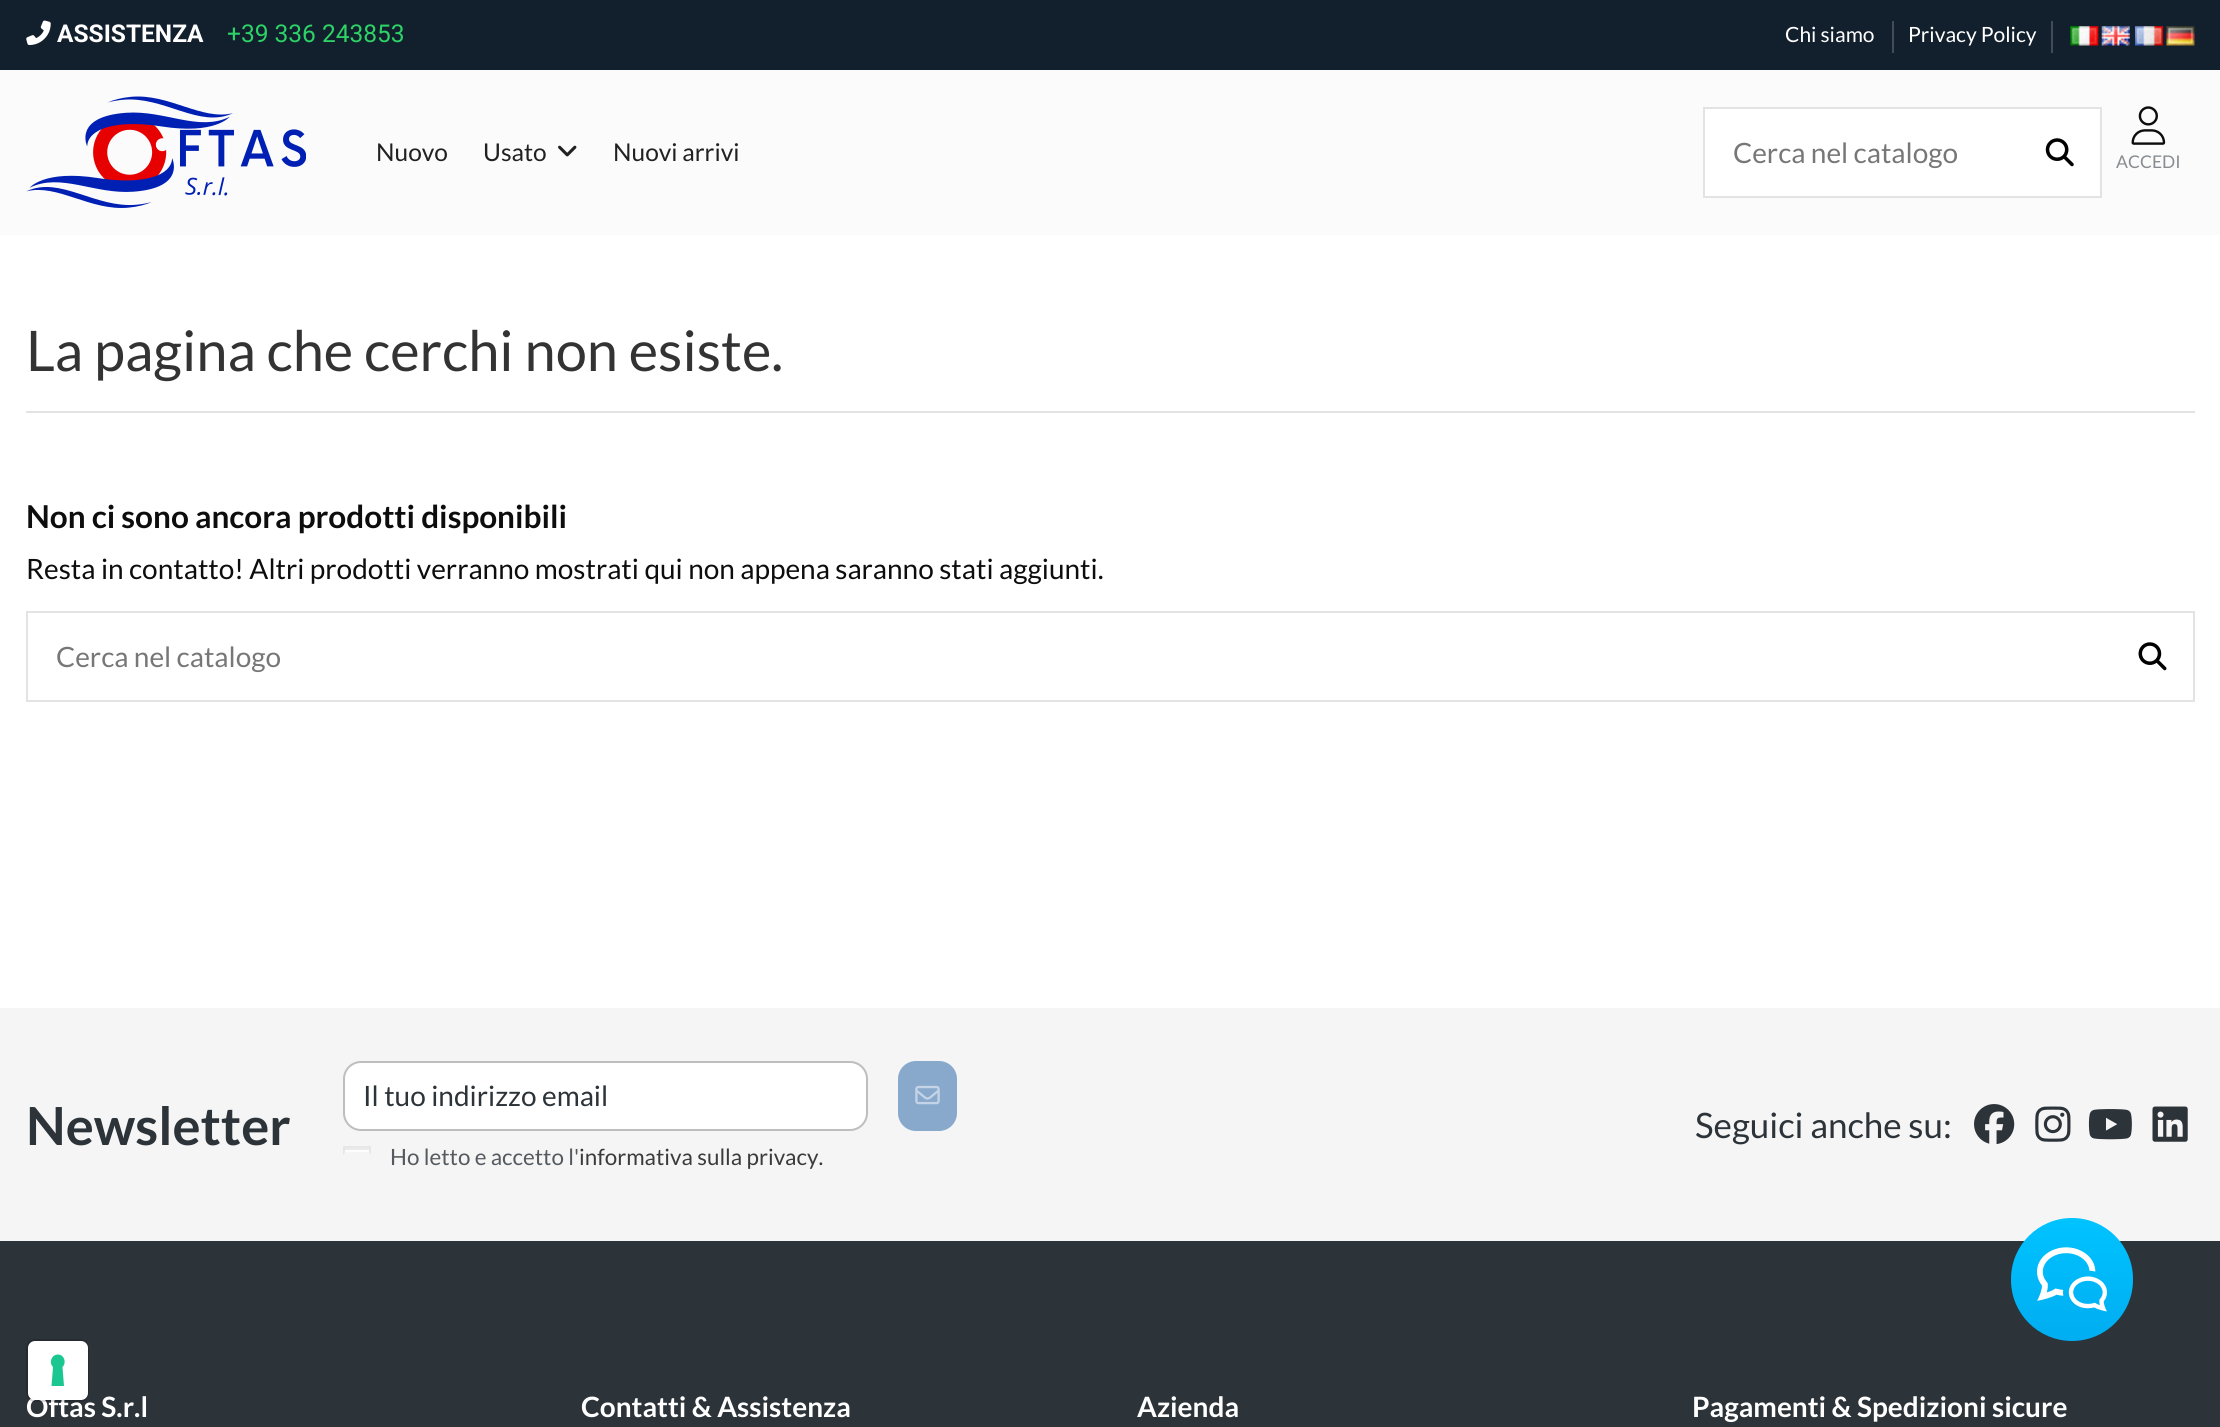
import math
import cairo

surface = cairo.ImageSurface(cairo.Format.RGB24, 2220, 1427)
ctx = cairo.Context(surface)
options = cairo.FontOptions()
options.set_hint_metrics(cairo.HintMetrics.OFF)
options.set_hint_style(cairo.HintStyle.NONE)
ctx.set_font_options(options)
ctx.set_miter_limit(4)


def ink(r, g, b):
    ctx.set_source_rgb(r / 255, g / 255, b / 255)


def write(x, y, s, family, size, color, bold=False, italic=False):
    ctx.select_font_face(family, cairo.FontSlant.ITALIC if italic else cairo.FontSlant.NORMAL, cairo.FontWeight.BOLD if bold else cairo.FontWeight.NORMAL)
    ctx.set_font_size(size)
    ink(*color)
    ctx.move_to(x, y)
    ctx.show_text(s)


def block(x, y, w, h, *color):
    ink(*color)
    ctx.rectangle(x, y, w, h)
    ctx.fill()


def round_path(x, y, w, h, r):
    ctx.new_sub_path()
    for i, (u, v) in enumerate([(x + w - r, y + h - r), (x + r, y + h - r), (x + r, y + r), (x + w - r, y + r)]):
        ctx.arc(u, v, r, i * math.pi / 2, (i + 1) * math.pi / 2)
    ctx.close_path()


def paste(path, x, y, w, h):
    ctx.save()
    ctx.set_source_surface(cairo.ImageSurface.create_from_png(path), x, y)
    ctx.rectangle(x, y, w, h)
    ctx.fill()
    ctx.restore()


s1 = dict(family="Roboto", size=24.5, color=(255, 255, 255), bold=True)
s2 = dict(family="Roboto", size=24.5, color=(45, 211, 102))
s3 = dict(family="Lato", size=21, color=(255, 255, 255))
s4 = dict(family="Lato", size=24.5, color=(33, 33, 33))
s5 = dict(family="Lato", size=28, color=(119, 119, 119))
s6 = dict(family="Lato", size=17.5, color=(136, 140, 144))
s7 = dict(family="Lato", size=56, color=(51, 51, 51))
s8 = dict(family="Lato", size=31.5, color=(13, 13, 13), bold=True)
s9 = dict(family="Lato", size=28, color=(13, 13, 13))
s10 = dict(family="Lato", size=52.5, color=(44, 51, 57), bold=True)
s11 = dict(family="Lato", size=28, color=(44, 51, 57))
s12 = dict(family="Lato", size=22.4, color=(84, 90, 95))
s13 = dict(family="Lato", size=22.4, color=(59, 59, 59))
s14 = dict(family="Lato", size=35, color=(44, 51, 57))
s15 = dict(family="Lato", size=28, color=(255, 255, 255), bold=True)

ink(255, 255, 255)
ctx.paint()
block(0, 70, 2220, 165, 251, 251, 251)
block(0, 0, 2220, 70, 18, 31, 44)
paste("pic1.png", 26, 20, 25, 26)
write(57, 42, "ASSISTENZA", **s1)
write(227, 42, "+39 336 243853", **s2)
write(1785, 42, "Chi siamo", **s3)
block(1892, 21, 2, 32, 65, 76, 86)
write(1908, 42, "Privacy Policy", **s3)
block(2051, 21, 2, 32, 65, 76, 86)
paste("pic2.png", 2070, 26, 29, 20)
paste("pic3.png", 2101, 26, 29, 20)
paste("pic4.png", 2135, 26, 28, 20)
paste("pic5.png", 2166, 26, 29, 20)
paste("pic6.png", 26, 96, 280, 112)
write(376, 161, "Nuovo", **s4)
write(483, 161, "Usato", **s4)
paste("pic7.png", 558, 145, 19, 12)
write(613, 161, "Nuovi arrivi", **s4)
ink(255, 255, 255)
ctx.rectangle(1704, 108, 397, 89)
ctx.fill_preserve()
ink(227, 227, 227)
ctx.stroke()
write(1733, 163, "Cerca nel catalogo", **s5)
paste("pic8.png", 2045, 138, 29, 29)
paste("pic9.png", 2131, 106, 35, 39)
write(2116, 168, "ACCEDI", **s6)
block(26, 411, 2169, 2, 227, 227, 227)
write(26, 371, "La pagina che cerchi non esiste.", **s7)
write(26, 528, "Non ci sono ancora prodotti disponibili", **s8)
write(26, 579, "Resta in contatto! Altri prodotti verranno mostrati qui non appena saranno stati aggiunti.", **s9)
ctx.rectangle(27, 612, 2167, 89)
ink(227, 227, 227)
ctx.stroke()
write(56, 667, "Cerca nel catalogo", **s5)
paste("pic10.png", 2138, 642, 29, 29)
block(0, 1241, 2220, 186, 44, 51, 57)
block(0, 1008, 2220, 233, 245, 245, 245)
write(26, 1145, "Newsletter", **s10)
ink(255, 255, 255)
round_path(344, 1062, 523, 68, 17)
ctx.fill_preserve()
ink(190, 190, 190)
ctx.stroke()
write(363, 1106, "Il tuo indirizzo email", **s11)
ink(136, 169, 204)
round_path(898, 1061, 59, 70, 18)
ctx.fill()
paste("pic11.png", 915, 1085, 25, 20)
block(345, 1150, 24, 3, 253, 253, 253)
block(345, 1148, 24, 2, 235, 235, 235)
ctx.rectangle(344, 1147, 26, 26)
ink(231, 231, 231)
ctx.stroke()
write(390, 1165, "Ho letto e accetto l'", **s12)
write(579, 1165, "informativa sulla privacy.", **s13)
ink(245, 245, 245)
round_path(344, 1153, 26, 26, 3)
ctx.fill_preserve()
ctx.stroke()
write(1695, 1138, "Seguici anche su:", **s14)
paste("pic12.png", 1974, 1104, 41, 41)
paste("pic13.png", 2035, 1106, 36, 36)
paste("pic14.png", 2088, 1109, 44, 31)
paste("pic15.png", 2152, 1106, 36, 36)
write(26, 1417, "Oftas S.r.l", **s15)
write(581, 1417, "Contatti & Assistenza", **s15)
write(1137, 1417, "Azienda", **s15)
write(1692, 1417, "Pagamenti & Spedizioni sicure", **s15)
gradient = cairo.LinearGradient(2072, 1341, 2072, 1218)
gradient.add_color_stop_rgba(0, 0, 0.678, 0.945, 1)
gradient.add_color_stop_rgba(1, 0, 0.765, 1, 1)
ctx.set_source(gradient)
round_path(2011, 1218, 122, 123, 61)
ctx.fill()
paste("pic16.png", 2037, 1247, 70, 65)
round_path(27, 1340, 61, 61, 8)
ctx.set_source_rgba(0, 0, 0, 0.15)
ctx.stroke()
ink(255, 255, 255)
round_path(28, 1341, 60, 59, 7)
ctx.fill()
ink(28, 198, 145)
ctx.set_fill_rule(cairo.FillRule.EVEN_ODD)
ctx.new_path()
ctx.move_to(58, 1354.5)
ctx.curve_to(64, 1354.5, 67, 1362.5, 62.5, 1367)
ctx.line_to(64, 1386)
ctx.line_to(51.5, 1386)
ctx.line_to(53, 1367)
ctx.curve_to(48.5, 1362.5, 51.5, 1354.5, 58, 1354.5)
ctx.close_path()
ctx.fill()
surface.write_to_png("screenshot.png")
